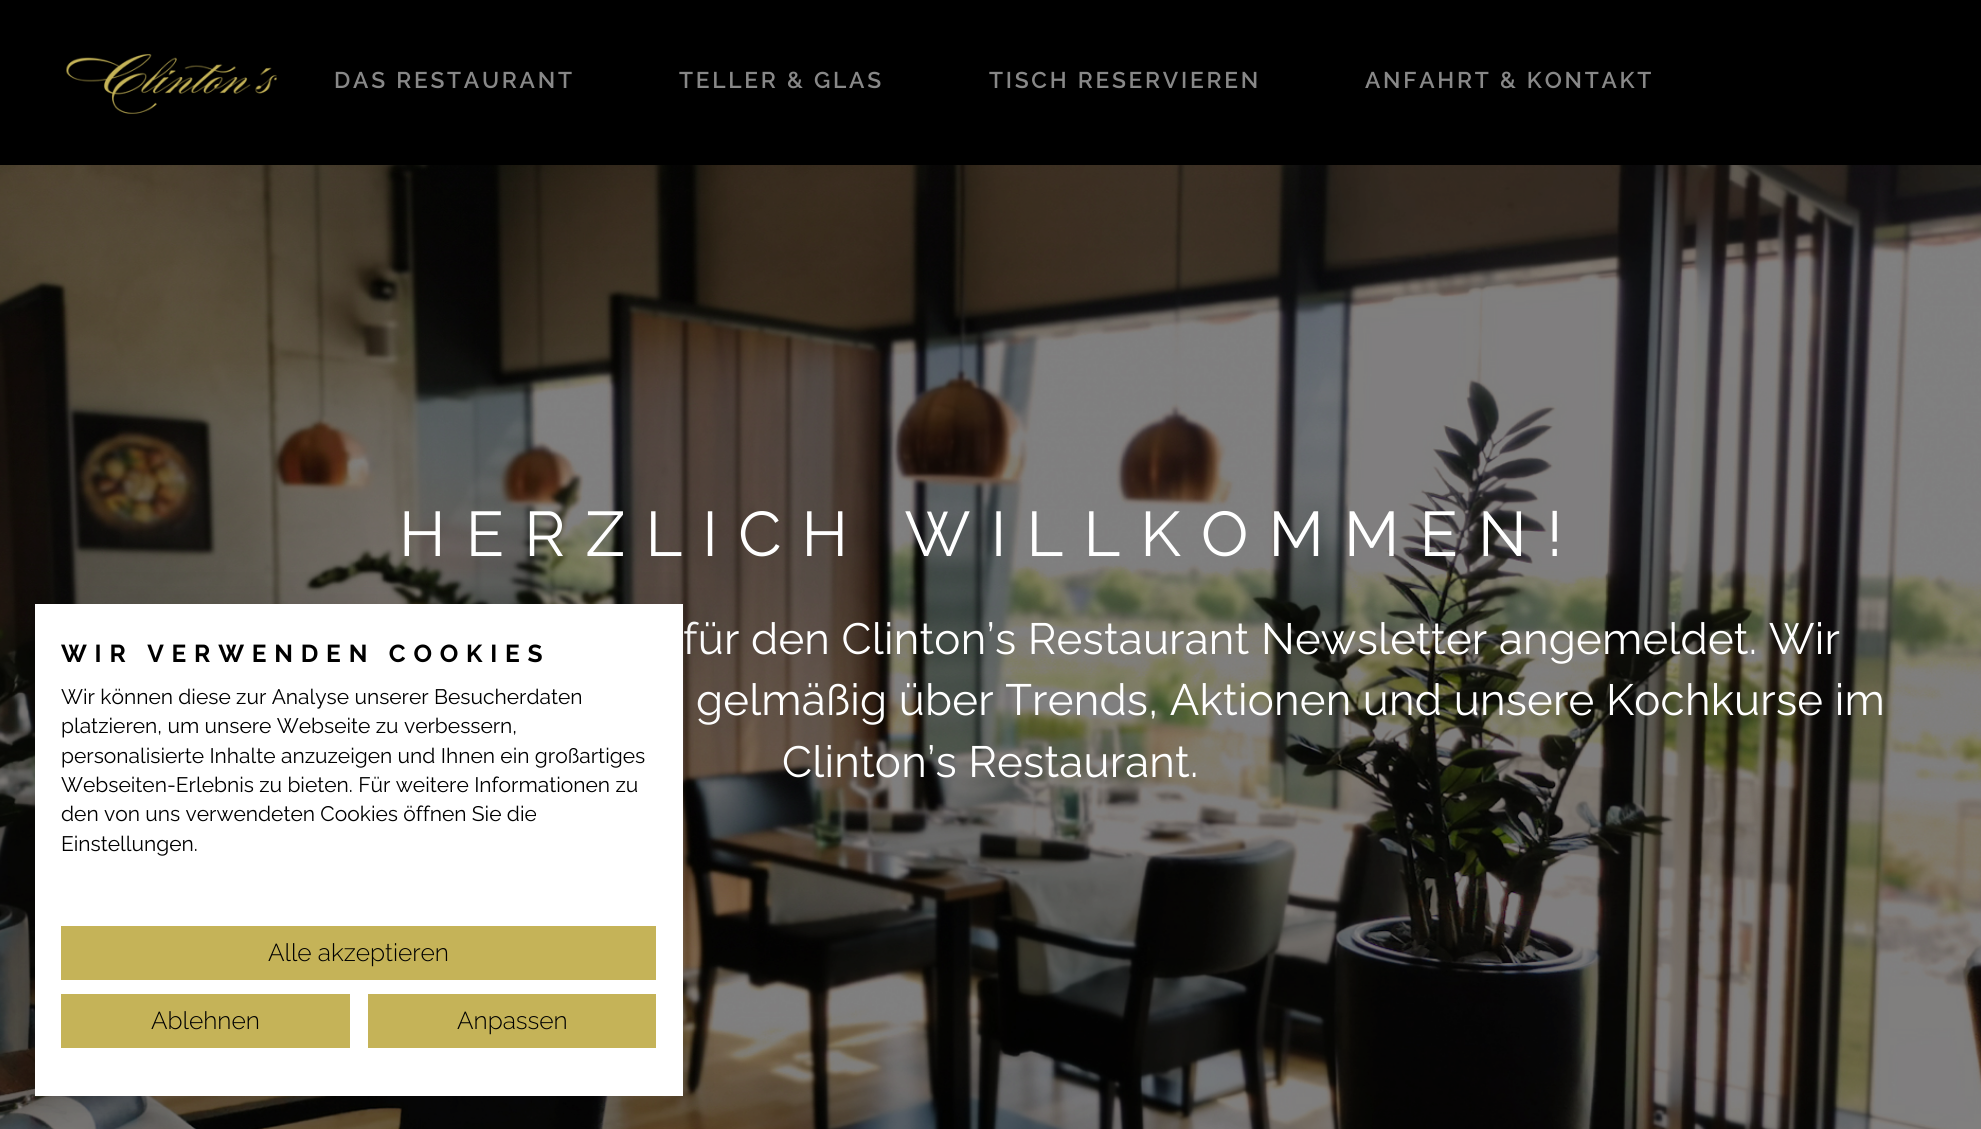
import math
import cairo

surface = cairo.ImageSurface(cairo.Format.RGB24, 1981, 1129)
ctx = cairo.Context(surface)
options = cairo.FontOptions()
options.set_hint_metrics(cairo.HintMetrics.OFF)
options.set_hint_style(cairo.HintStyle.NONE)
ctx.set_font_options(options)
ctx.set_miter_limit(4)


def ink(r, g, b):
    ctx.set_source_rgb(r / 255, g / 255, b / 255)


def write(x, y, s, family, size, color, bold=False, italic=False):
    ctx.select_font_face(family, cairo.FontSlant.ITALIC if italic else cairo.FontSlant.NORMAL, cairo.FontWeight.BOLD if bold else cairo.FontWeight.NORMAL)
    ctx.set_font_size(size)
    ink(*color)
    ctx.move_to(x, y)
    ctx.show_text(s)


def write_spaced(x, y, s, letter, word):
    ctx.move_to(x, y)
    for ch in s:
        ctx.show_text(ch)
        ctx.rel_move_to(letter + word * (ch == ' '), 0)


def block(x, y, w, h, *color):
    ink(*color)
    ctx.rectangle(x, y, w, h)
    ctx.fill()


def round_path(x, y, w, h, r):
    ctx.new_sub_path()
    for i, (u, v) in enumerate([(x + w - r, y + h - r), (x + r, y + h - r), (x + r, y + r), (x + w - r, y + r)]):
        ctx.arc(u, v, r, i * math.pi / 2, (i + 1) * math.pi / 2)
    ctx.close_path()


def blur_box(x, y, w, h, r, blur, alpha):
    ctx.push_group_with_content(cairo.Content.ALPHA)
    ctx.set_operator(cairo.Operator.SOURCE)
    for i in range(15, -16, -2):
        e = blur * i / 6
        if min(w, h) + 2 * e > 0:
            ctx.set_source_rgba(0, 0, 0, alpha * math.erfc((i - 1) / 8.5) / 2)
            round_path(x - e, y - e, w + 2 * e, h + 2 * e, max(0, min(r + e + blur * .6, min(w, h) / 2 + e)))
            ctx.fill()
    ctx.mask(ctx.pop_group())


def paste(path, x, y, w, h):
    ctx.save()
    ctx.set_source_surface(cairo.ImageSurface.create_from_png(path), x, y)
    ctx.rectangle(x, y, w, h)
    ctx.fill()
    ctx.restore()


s1 = dict(family="Raleway", size=21, color=(0, 0, 0))
s2 = dict(family="Raleway Light", size=24.5, color=(0, 0, 0))

ink(255, 255, 255)
ctx.paint()
block(0, 0, 1981, 165, 0, 0, 0)
paste("pic1.png", 66, 54, 211, 60)
ctx.select_font_face("Raleway SemiBold")
ctx.set_font_size(22.75)
ink(136, 136, 136)
write_spaced(334, 88, "DAS RESTAURANT", 2.75, 0)
write_spaced(679, 88, "TELLER & GLAS", 2.75, 0)
write_spaced(989, 88, "TISCH RESERVIEREN", 2.75, 0)
write_spaced(1365, 88, "ANFAHRT & KONTAKT", 2.75, 0)
paste("pic2.png", 0, 165, 1981, 964)
ctx.select_font_face("Raleway")
ctx.set_font_size(63)
ink(255, 255, 255)
write_spaced(399, 556, "HERZLICH WILLKOMMEN!", 20.2, 0)
ctx.set_font_size(43.75)
write_spaced(683, 654, "für den Clinton’s Restaurant Newsletter angemeldet. Wir", 0.25, 0)
write_spaced(696, 715, "gelmäßig über Trends, Aktionen und unsere Kochkurse im", 0.25, 0)
write_spaced(782, 777, "Clinton’s Restaurant.", 0.25, 0)
ink(0, 0, 0)
blur_box(35, 604, 648, 492, 0, 21, 0.1)
block(35, 604, 648, 492, 255, 255, 255)
ctx.select_font_face("Raleway", cairo.FontSlant.NORMAL, cairo.FontWeight.BOLD)
ctx.set_font_size(24.5)
ink(0, 0, 0)
write_spaced(61, 662, "WIR VERWENDEN COOKIES", 7.8, 0)
write(61, 704, "Wir können diese zur Analyse unserer Besucherdaten", **s1)
write(61, 733, "platzieren, um unsere Webseite zu verbessern,", **s1)
write(61, 763, "personalisierte Inhalte anzuzeigen und Ihnen ein großartiges", **s1)
write(61, 792, "Webseiten-Erlebnis zu bieten. Für weitere Informationen zu", **s1)
write(61, 821, "den von uns verwendeten Cookies öffnen Sie die", **s1)
write(61, 851, "Einstellungen.", **s1)
block(61, 926, 595, 54, 197, 179, 88)
write(268, 961, "Alle akzeptieren", **s2)
block(61, 994, 289, 54, 197, 179, 88)
write(151, 1029, "Ablehnen", **s2)
block(368, 994, 288, 54, 197, 179, 88)
write(457, 1029, "Anpassen", **s2)
surface.write_to_png("screenshot.png")
